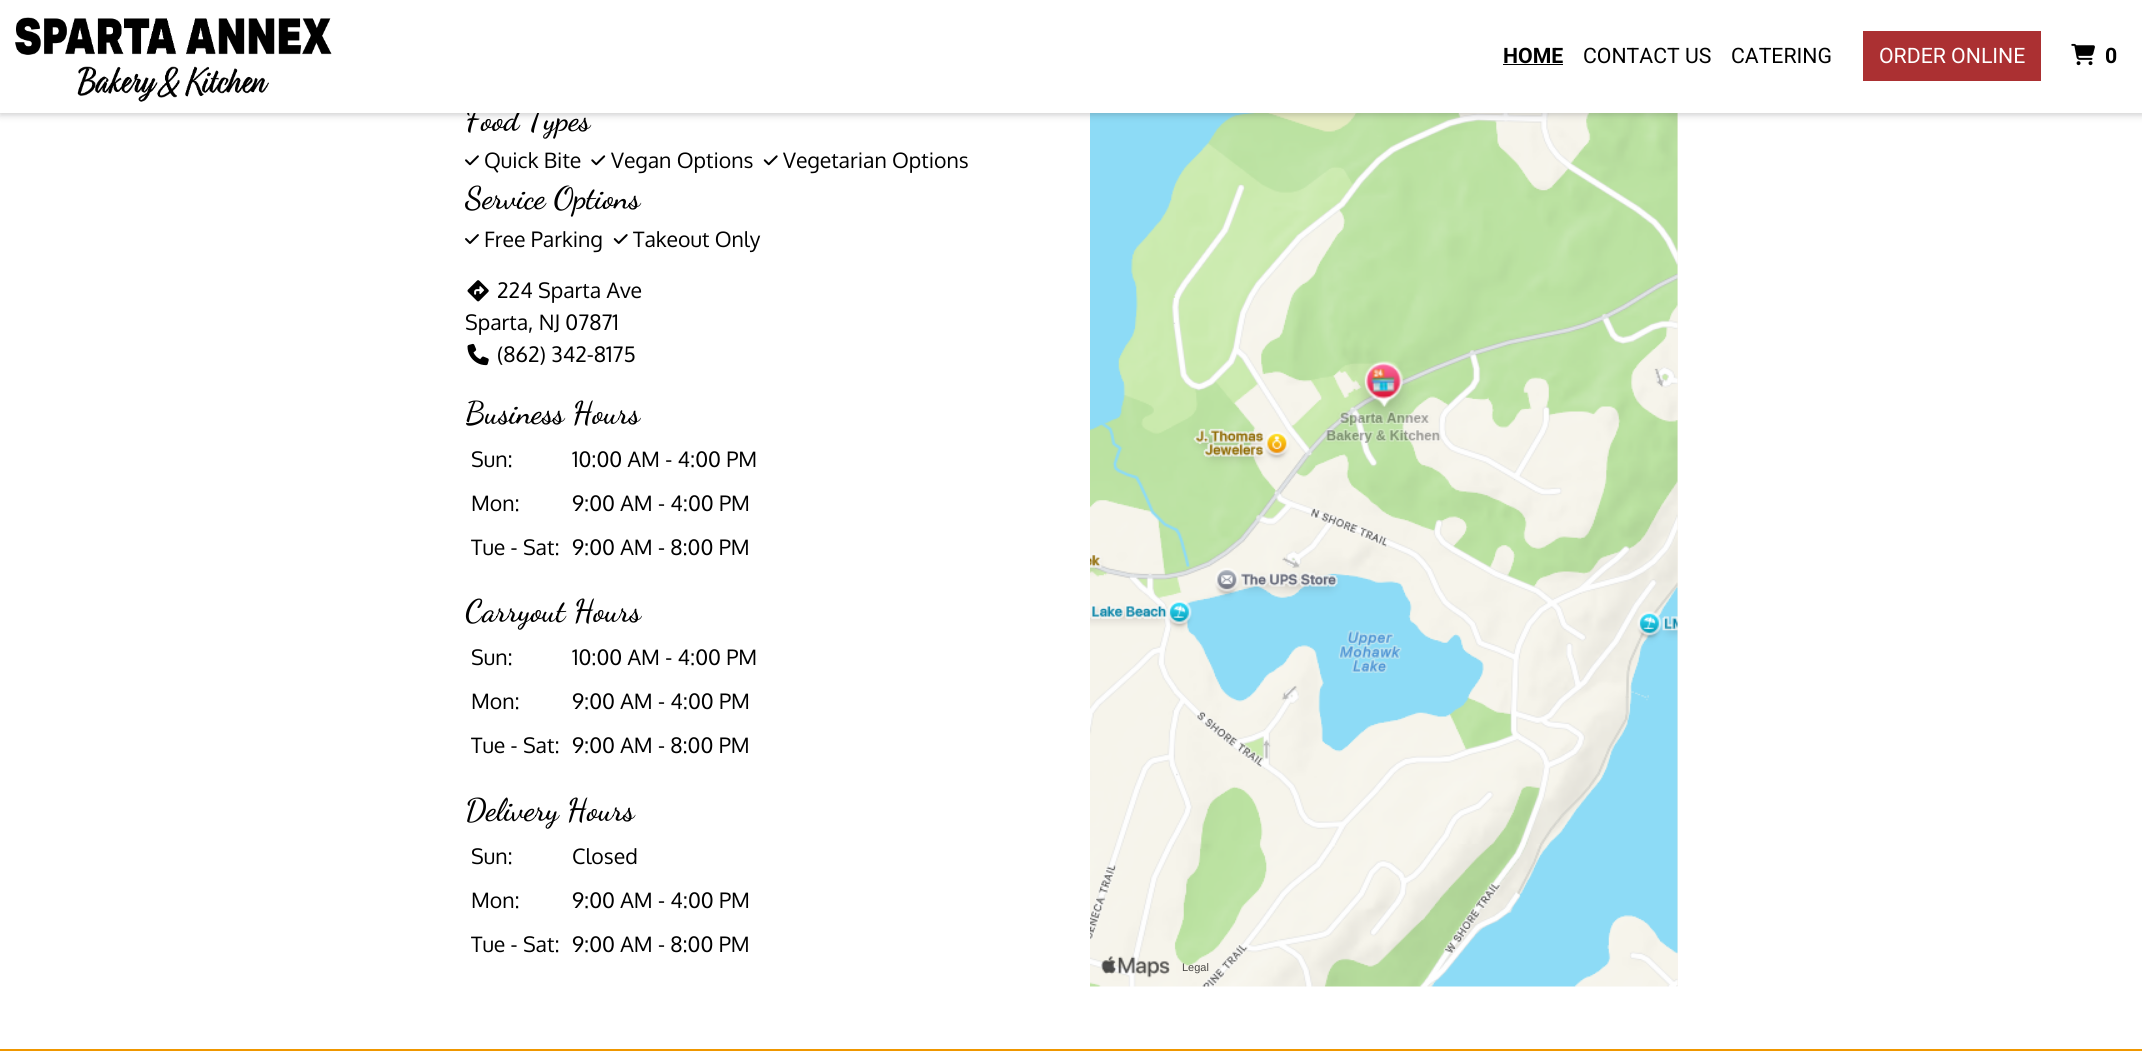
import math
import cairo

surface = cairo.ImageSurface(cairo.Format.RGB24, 2142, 1051)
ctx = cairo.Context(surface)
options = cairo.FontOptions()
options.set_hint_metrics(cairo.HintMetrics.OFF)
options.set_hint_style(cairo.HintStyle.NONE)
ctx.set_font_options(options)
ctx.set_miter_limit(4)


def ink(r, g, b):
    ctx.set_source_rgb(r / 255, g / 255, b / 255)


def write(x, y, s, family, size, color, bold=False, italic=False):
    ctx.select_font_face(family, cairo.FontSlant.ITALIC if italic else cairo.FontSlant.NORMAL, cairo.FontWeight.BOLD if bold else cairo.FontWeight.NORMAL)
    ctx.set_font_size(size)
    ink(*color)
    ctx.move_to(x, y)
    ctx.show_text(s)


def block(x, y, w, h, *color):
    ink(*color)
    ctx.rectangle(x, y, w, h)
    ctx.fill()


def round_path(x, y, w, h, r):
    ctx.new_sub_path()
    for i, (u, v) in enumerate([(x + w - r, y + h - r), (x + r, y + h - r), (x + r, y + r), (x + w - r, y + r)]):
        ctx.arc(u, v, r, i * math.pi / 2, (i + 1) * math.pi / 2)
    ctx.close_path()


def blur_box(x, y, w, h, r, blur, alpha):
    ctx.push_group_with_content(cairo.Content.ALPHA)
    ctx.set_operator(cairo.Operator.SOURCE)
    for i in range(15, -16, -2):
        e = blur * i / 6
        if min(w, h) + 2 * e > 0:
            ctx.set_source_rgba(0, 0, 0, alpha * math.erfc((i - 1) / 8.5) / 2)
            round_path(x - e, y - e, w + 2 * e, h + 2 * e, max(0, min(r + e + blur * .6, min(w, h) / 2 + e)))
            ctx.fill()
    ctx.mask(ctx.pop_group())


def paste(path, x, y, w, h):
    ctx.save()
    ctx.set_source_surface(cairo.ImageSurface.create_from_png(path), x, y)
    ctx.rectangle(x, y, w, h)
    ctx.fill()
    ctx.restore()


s1 = dict(family="Dancing Script SemiBold", size=31.25, color=(0, 0, 0))
s2 = dict(family="Roboto", size=21.25, color=(0, 0, 0), bold=True)
s3 = dict(family="Roboto", size=21.25, color=(0, 0, 0))
s4 = dict(family="Roboto", size=21.25, color=(255, 255, 255))
s5 = dict(family="Oxygen", size=21.25, color=(0, 0, 0))
s6 = dict(family="Liberation Sans", size=11, color=(74, 73, 70))

ink(255, 255, 255)
ctx.paint()
block(1677, 113, 1, 873, 249, 245, 237)
paste("pic10.png", 1090, 113, 588, 874)
ink(32, 33, 36)
blur_box(0, 1, 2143, 113, 0, 4, 0.28)
write(465, 130, "Food Types", **s1)
block(0, 0, 2142, 113, 255, 255, 255)
paste("pic1.png", 15, 17, 317, 85)
write(1503, 63, "HOME", **s2)
block(1503, 64, 60, 1, 0, 0, 0)
write(1583, 63, "CONTACT US", **s3)
write(1731, 63, "CATERING", **s3)
block(1863, 31, 178, 50, 171, 48, 50)
write(1879, 63, "ORDER ONLINE", **s4)
paste("pic2.png", 2071, 43, 24, 23)
write(2105, 63, "0", **s2)
paste("pic3.png", 465, 155, 14, 11)
write(484, 168, "Quick Bite", **s5)
paste("pic4.png", 591, 155, 15, 11)
write(611, 168, "Vegan Options", **s5)
paste("pic5.png", 763, 155, 15, 11)
write(783, 168, "Vegetarian Options", **s5)
write(465, 208, "Service Options", **s1)
paste("pic6.png", 465, 234, 14, 10)
write(484, 247, "Free Parking", **s5)
paste("pic7.png", 613, 234, 15, 10)
write(633, 247, "Takeout Only", **s5)
paste("pic8.png", 467, 280, 22, 22)
write(497, 298, "224 Sparta Ave", **s5)
write(465, 330, "Sparta, NJ 07871", **s5)
paste("pic9.png", 467, 343, 22, 23)
write(497, 362, "(862) 342-8175", **s5)
write(465, 423, "Business Hours", **s1)
write(471, 467, "Sun:", **s5)
write(572, 467, "10:00 AM - 4:00 PM", **s5)
write(471, 511, "Mon:", **s5)
write(572, 511, "9:00 AM - 4:00 PM", **s5)
write(471, 555, "Tue - Sat:", **s5)
write(572, 555, "9:00 AM - 8:00 PM", **s5)
write(465, 621, "Carryout Hours", **s1)
write(471, 665, "Sun:", **s5)
write(572, 665, "10:00 AM - 4:00 PM", **s5)
write(471, 709, "Mon:", **s5)
write(572, 709, "9:00 AM - 4:00 PM", **s5)
write(471, 753, "Tue - Sat:", **s5)
write(572, 753, "9:00 AM - 8:00 PM", **s5)
write(465, 820, "Delivery Hours", **s1)
write(471, 864, "Sun:", **s5)
write(572, 864, "Closed", **s5)
write(471, 908, "Mon:", **s5)
write(572, 908, "9:00 AM - 4:00 PM", **s5)
write(471, 952, "Tue - Sat:", **s5)
write(572, 952, "9:00 AM - 8:00 PM", **s5)
paste("pic11.png", 1325, 361, 116, 83)
paste("pic12.png", 1101, 956, 69, 22)
write(1182, 971, "Legal", **s6)
block(0, 1049, 2142, 2, 239, 151, 0)
surface.write_to_png("screenshot.png")
